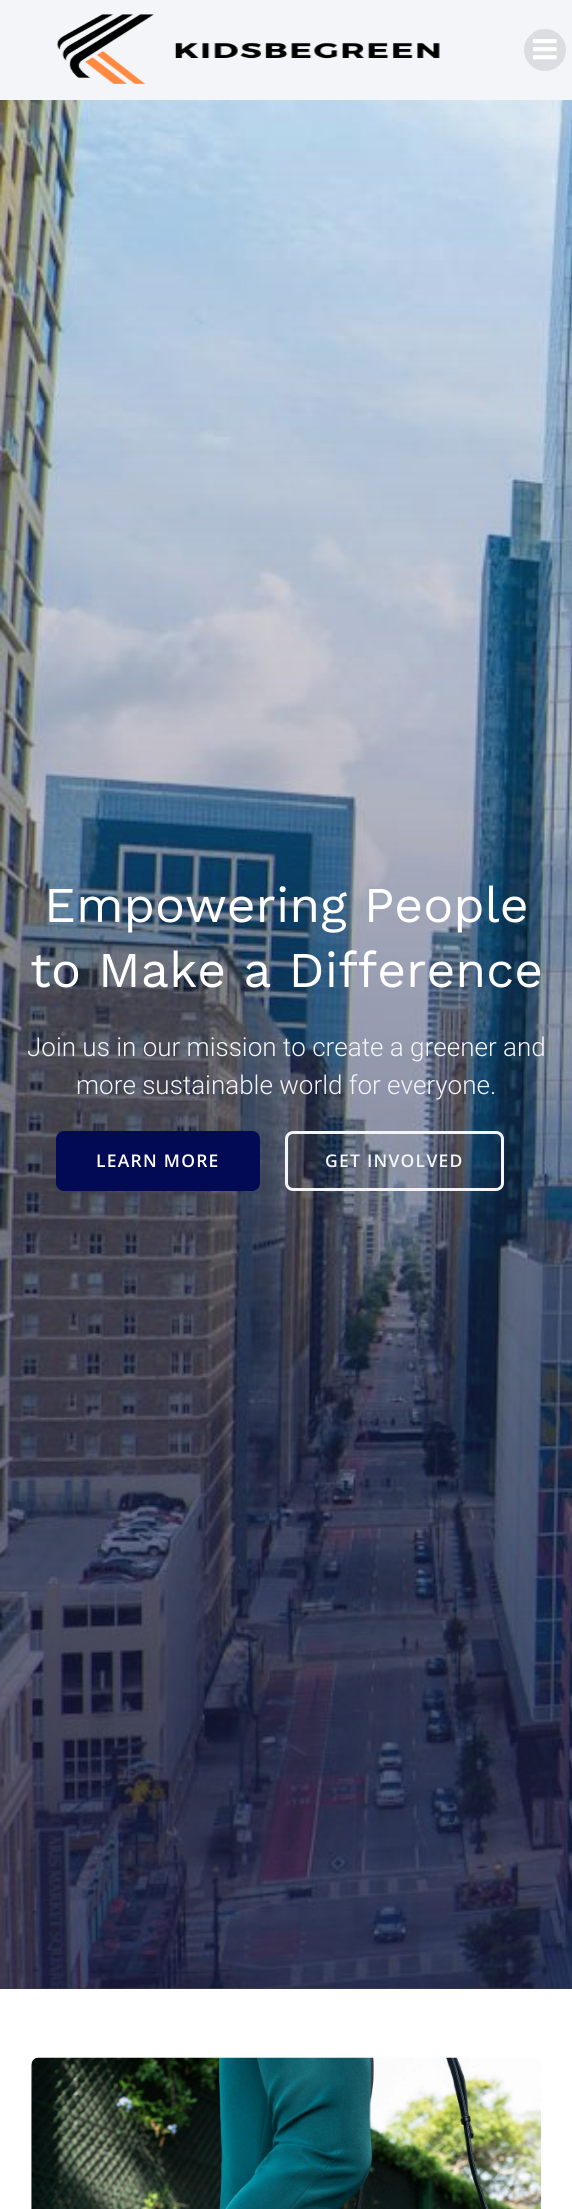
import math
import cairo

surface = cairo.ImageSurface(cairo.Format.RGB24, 572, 2209)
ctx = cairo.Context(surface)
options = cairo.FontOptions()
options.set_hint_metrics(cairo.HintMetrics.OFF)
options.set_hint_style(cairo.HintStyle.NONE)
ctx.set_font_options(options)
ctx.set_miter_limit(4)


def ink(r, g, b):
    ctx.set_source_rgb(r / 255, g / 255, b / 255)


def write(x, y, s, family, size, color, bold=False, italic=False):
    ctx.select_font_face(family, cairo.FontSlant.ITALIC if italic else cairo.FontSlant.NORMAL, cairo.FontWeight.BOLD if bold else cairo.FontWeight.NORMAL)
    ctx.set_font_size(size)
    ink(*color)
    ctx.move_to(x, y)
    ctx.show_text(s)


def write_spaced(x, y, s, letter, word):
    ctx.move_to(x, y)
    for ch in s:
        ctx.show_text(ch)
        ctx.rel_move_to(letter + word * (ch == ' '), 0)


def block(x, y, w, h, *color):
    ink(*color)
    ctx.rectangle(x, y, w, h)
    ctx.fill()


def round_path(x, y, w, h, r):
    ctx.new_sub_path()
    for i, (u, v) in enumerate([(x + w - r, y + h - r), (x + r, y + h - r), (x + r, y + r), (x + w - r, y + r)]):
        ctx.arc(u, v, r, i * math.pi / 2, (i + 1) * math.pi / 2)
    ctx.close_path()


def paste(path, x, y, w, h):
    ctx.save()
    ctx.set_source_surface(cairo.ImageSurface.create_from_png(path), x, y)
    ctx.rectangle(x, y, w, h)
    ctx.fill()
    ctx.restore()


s1 = dict(family="Work Sans", size=50, color=(255, 255, 255))
s2 = dict(family="Roboto Light", size=26, color=(244, 245, 249))

ink(255, 255, 255)
ctx.paint()
block(0, 0, 572, 100, 244, 245, 249)
paste("pic1.png", 56, 14, 384, 70)
ink(220, 221, 224)
ctx.arc(545, 50, 21, 0, 2 * math.pi)
ctx.fill()
paste("pic2.png", 533, 39, 24, 21)
paste("pic4.png", 0, 1988, 572, 1)
paste("pic5.png", 0, 1988, 572, 1)
paste("pic3.png", 0, 100, 572, 1889)
gradient = cairo.LinearGradient(286, -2.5, 286, 1991)
gradient.add_color_stop_rgba(0, 0.11, 0.094, 0.255, 0)
gradient.add_color_stop_rgba(1, 0.11, 0.094, 0.255, 0.7)
ctx.set_source(gradient)
ctx.rectangle(0, 100, 572, 1889)
ctx.fill()
write(44, 922, "Empowering People", **s1)
write(30, 987, "to Make a Difference", **s1)
write(27, 1056, "Join us in our mission to create a greener and", **s2)
write(76, 1094, "more sustainable world for everyone.", **s2)
ink(2, 9, 85)
round_path(57.5, 1132.5, 201, 57, 6.5)
ctx.fill_preserve()
ctx.set_line_width(3)
ctx.stroke()
ctx.select_font_face("Open Sans SemiBold")
ctx.set_font_size(17.5)
ink(255, 255, 255)
write_spaced(96, 1167, "LEARN MORE", 1.25, 0)
round_path(286.5, 1132.5, 216, 57, 6.5)
ink(244, 245, 249)
ctx.stroke()
write_spaced(325, 1167, "GET INVOLVED", 1.25, 0)
paste("pic6.png", 31, 2057, 511, 152)
surface.write_to_png("screenshot.png")
